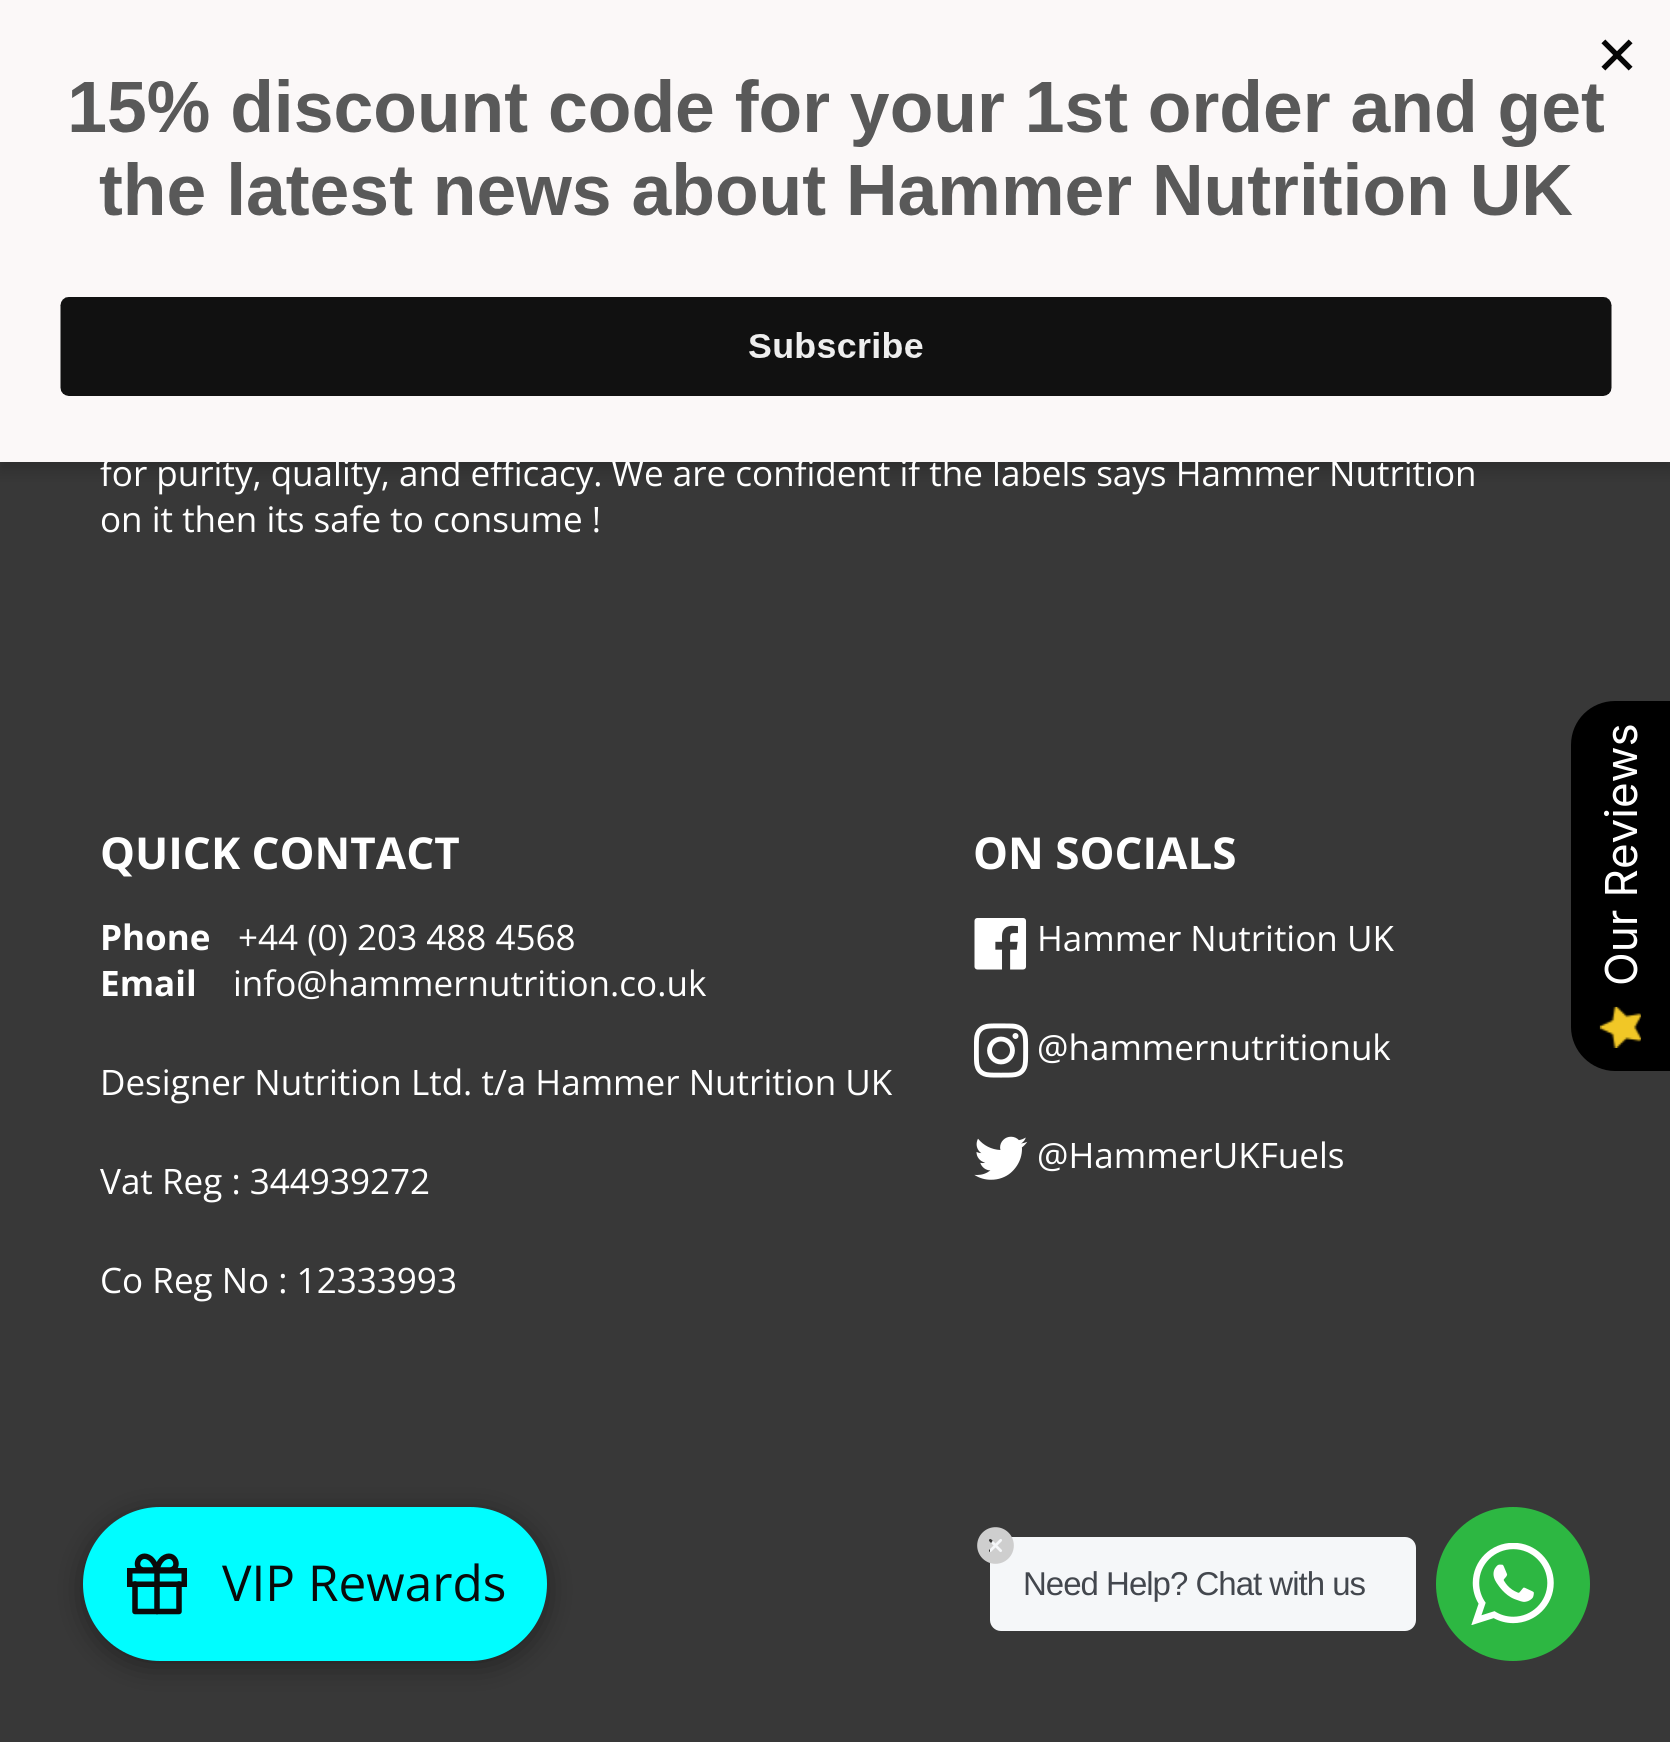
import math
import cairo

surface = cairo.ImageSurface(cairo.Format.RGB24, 1670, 1742)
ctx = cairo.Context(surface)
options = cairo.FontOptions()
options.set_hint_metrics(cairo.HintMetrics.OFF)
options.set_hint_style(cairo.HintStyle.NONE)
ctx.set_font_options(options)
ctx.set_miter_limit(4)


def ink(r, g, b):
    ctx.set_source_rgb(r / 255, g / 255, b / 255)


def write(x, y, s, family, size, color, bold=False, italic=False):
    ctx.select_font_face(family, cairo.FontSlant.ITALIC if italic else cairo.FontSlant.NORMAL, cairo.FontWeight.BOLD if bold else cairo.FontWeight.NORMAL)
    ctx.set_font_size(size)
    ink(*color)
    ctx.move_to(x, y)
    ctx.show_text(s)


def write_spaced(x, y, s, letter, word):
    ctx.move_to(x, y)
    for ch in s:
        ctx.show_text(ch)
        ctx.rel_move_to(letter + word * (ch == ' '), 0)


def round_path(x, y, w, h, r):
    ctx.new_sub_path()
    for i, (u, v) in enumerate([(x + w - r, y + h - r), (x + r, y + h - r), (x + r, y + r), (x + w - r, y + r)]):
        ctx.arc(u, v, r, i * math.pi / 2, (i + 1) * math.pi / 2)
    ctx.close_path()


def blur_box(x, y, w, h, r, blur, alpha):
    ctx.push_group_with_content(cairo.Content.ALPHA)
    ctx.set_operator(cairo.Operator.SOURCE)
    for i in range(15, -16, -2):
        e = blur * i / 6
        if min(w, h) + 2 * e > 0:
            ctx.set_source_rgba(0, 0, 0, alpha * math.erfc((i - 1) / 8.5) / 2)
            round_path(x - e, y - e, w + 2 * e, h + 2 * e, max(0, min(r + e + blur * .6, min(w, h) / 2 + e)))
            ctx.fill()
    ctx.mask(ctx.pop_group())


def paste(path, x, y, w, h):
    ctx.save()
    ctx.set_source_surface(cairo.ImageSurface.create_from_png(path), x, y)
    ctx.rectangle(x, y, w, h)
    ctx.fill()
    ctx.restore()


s1 = dict(family="Open Sans", size=35.05, color=(255, 255, 255))
s2 = dict(family="Open Sans", size=44, color=(255, 255, 255), bold=True)
s3 = dict(family="Open Sans", size=35.05, color=(255, 255, 255), bold=True)
s4 = dict(family="Inter", size=44, color=(255, 255, 255))
s5 = dict(family="Open Sans", size=49.5, color=(10, 10, 10))

ink(56, 56, 56)
ctx.paint()
ink(0, 0, 0)
blur_box(0, 8, 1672, 462, 0, 8, 0.2)
write(100, 486, "for purity, quality, and efficacy. We are confident if the labels says Hammer Nutrition", **s1)
paste("pic1.png", 0, 0, 1670, 462)
write(100, 532, "on it then its safe to consume !", **s1)
write(100, 869, "QUICK CONTACT", **s2)
write(100, 950, "Phone", **s3)
write(238, 950, "+44 (0) 203 488 4568", **s1)
write(100, 996, "Email", **s3)
write(233, 996, "info@hammernutrition.co.uk", **s1)
write(100, 1095, "Designer Nutrition Ltd. t/a Hammer Nutrition UK", **s1)
write(100, 1194, "Vat Reg : 344939272", **s1)
write(100, 1293, "Co Reg No : 12333993", **s1)
write(973, 869, "ON SOCIALS", **s2)
paste("pic2.png", 974, 918, 53, 52)
write(1037, 951, "Hammer Nutrition UK", **s1)
paste("pic3.png", 974, 1023, 55, 55)
write(1037, 1060, "@hammernutritionuk", **s1)
paste("pic4.png", 974, 1136, 54, 44)
write(1037, 1168, "@HammerUKFuels", **s1)
ink(0, 0, 0)
ctx.new_path()
ctx.move_to(1571, 1027)
ctx.line_to(1571, 745)
ctx.curve_to(1571, 720, 1591, 701, 1615, 701)
ctx.line_to(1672, 701)
ctx.line_to(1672, 1071)
ctx.line_to(1615, 1071)
ctx.curve_to(1591, 1071, 1571, 1051, 1571, 1027)
ctx.close_path()
ctx.fill()
ctx.save()
ctx.translate(1637, 986)
ctx.rotate(-90 * math.pi / 180)
write(0, 0, "Our Reviews", **s4)
ctx.restore()
paste("pic5.png", 1599, 1006, 43, 42)
ink(0, 0, 0)
blur_box(88, 1518, 454, 143, 71.5, 16.5, 0.5)
ink(0, 253, 255)
round_path(83, 1507, 464, 154, 77)
ctx.fill()
ctx.new_path()
ctx.move_to(179, 1584)
ctx.line_to(179, 1611.5)
ctx.line_to(135, 1611.5)
ctx.line_to(135, 1584)
ink(10, 10, 10)
ctx.set_line_width(5.5)
ctx.set_line_cap(cairo.LineCap.ROUND)
ctx.set_line_join(cairo.LineJoin.ROUND)
ctx.stroke()
ctx.rectangle(129.75, 1570.75, 54.5, 13.5)
ctx.set_line_cap(cairo.LineCap.BUTT)
ctx.set_line_join(cairo.LineJoin.MITER)
ctx.stroke()
ctx.new_path()
ctx.move_to(157, 1611.5)
ctx.line_to(157, 1570)
ctx.move_to(157, 1570)
ctx.line_to(143, 1570)
ctx.curve_to(132, 1568, 139, 1550, 150.5, 1558.5)
ctx.curve_to(154, 1561.5, 156, 1566, 157, 1570)
ctx.close_path()
ctx.move_to(157, 1570)
ctx.line_to(170.5, 1570)
ctx.curve_to(181.5, 1568, 174.5, 1550, 163, 1558.5)
ctx.curve_to(159.5, 1561.5, 157.5, 1566, 157, 1570)
ctx.close_path()
ctx.set_line_cap(cairo.LineCap.ROUND)
ctx.set_line_join(cairo.LineJoin.ROUND)
ctx.stroke()
write(222, 1601, "VIP Rewards", **s5)
ink(245, 247, 249)
round_path(990, 1537, 426, 94, 11)
ctx.fill()
paste("pic6.png", 977, 1527, 37, 37)
ctx.select_font_face("Liberation Sans")
ctx.set_font_size(33)
ink(67, 71, 78)
write_spaced(1023, 1595, "Need Help? Chat with us", -1, 0)
ink(45, 183, 66)
ctx.new_path()
ctx.arc(1513, 1584, 77, 0, 2 * math.pi)
ctx.fill()
paste("pic7.png", 1471, 1543, 83, 82)
surface.write_to_png("screenshot.png")
